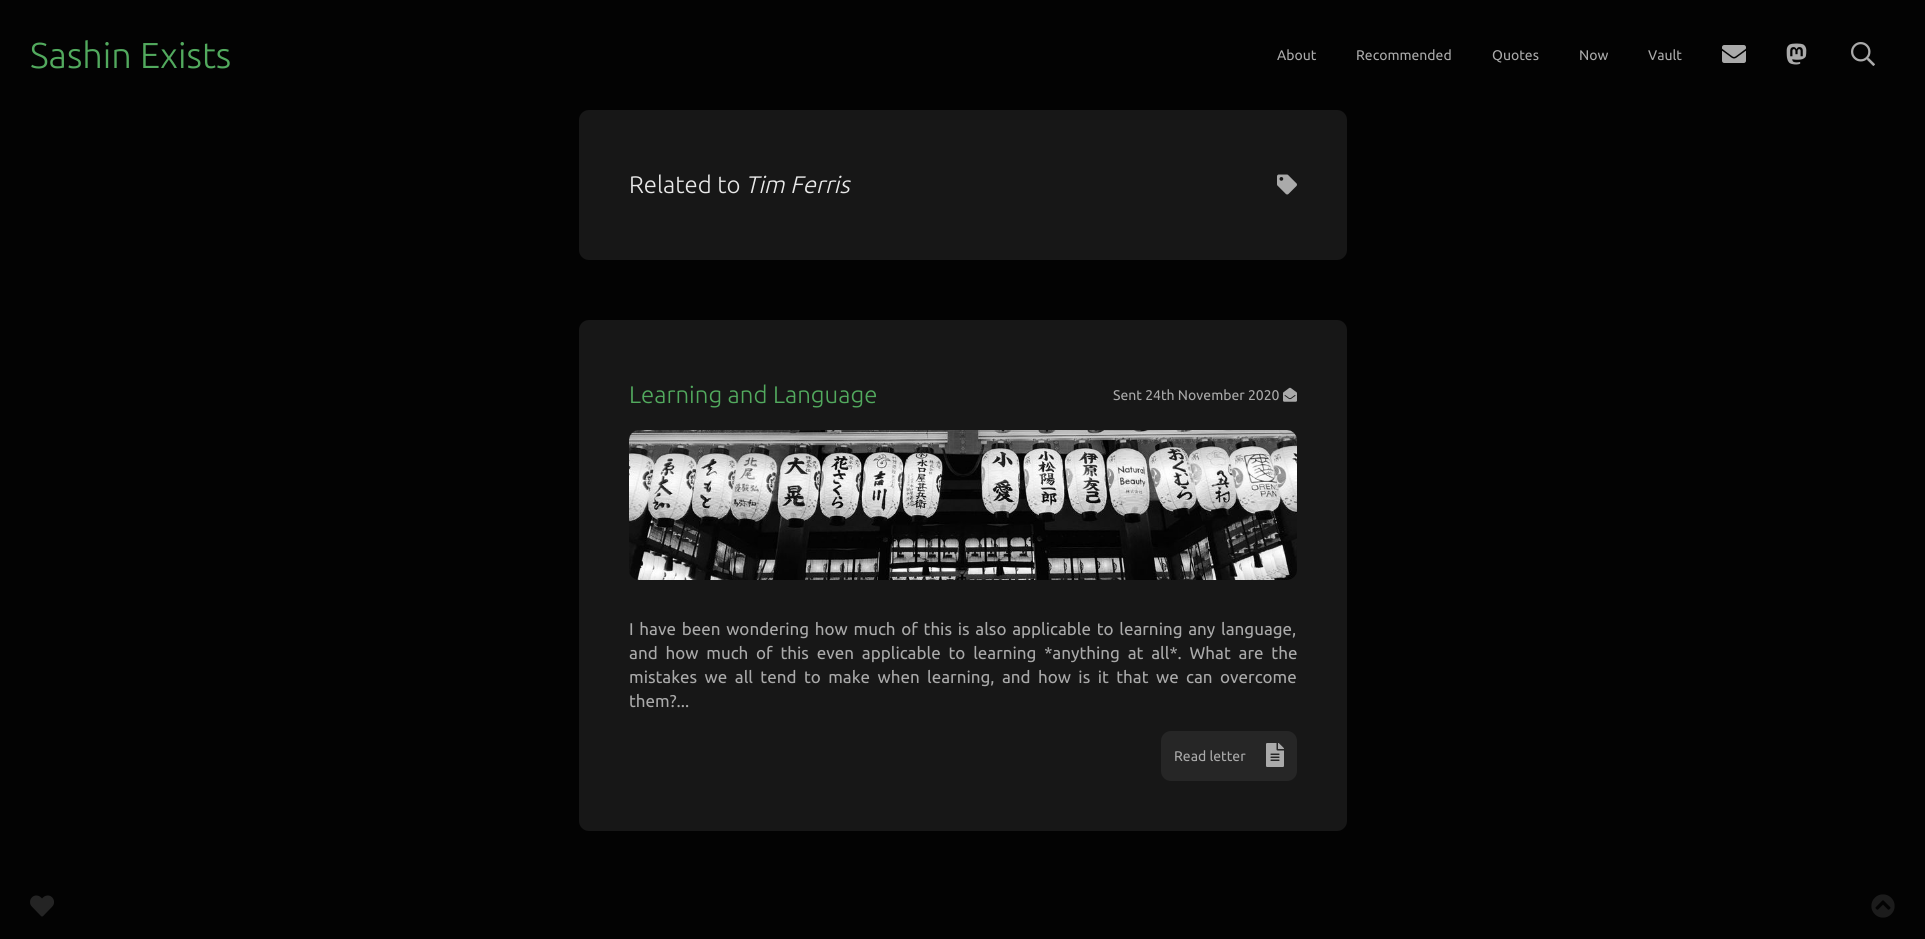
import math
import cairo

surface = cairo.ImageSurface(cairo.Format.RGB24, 1925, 939)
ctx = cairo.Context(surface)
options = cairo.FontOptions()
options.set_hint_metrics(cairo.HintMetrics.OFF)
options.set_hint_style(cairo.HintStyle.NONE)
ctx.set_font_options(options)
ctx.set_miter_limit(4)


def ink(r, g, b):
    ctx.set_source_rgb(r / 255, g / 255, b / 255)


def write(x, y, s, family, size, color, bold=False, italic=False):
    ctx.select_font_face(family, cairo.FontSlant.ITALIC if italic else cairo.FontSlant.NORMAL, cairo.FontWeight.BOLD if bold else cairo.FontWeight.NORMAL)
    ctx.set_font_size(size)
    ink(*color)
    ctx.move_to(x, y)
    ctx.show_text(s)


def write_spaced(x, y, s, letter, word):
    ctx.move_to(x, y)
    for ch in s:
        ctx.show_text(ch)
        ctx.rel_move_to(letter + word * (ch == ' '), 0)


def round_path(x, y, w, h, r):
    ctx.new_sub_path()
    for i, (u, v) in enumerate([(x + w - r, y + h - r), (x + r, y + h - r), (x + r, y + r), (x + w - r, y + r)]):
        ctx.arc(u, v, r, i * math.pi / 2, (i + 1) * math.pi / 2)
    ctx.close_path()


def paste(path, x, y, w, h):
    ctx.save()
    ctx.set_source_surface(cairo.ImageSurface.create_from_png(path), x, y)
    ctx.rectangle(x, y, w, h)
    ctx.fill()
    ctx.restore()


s1 = dict(family="Ubuntu Light", size=36, color=(82, 170, 94))
s2 = dict(family="Ubuntu", size=14, color=(170, 170, 170))
s3 = dict(family="Ubuntu Light", size=24, color=(233, 233, 233))
s4 = dict(family="Ubuntu Light", size=24, color=(233, 233, 233), italic=True)
s5 = dict(family="Ubuntu Light", size=24, color=(82, 170, 94))
s6 = dict(family="Ubuntu", size=17, color=(170, 170, 170))

ink(3, 3, 3)
ctx.paint()
write(30, 68, "Sashin Exists", **s1)
write(1277, 60, "About", **s2)
write(1356, 60, "Recommended", **s2)
write(1492, 60, "Quotes", **s2)
write(1579, 60, "Now", **s2)
write(1648, 60, "Vault", **s2)
paste("pic1.png", 1722, 45, 24, 18)
paste("pic2.png", 1786, 43, 21, 22)
paste("pic3.png", 1851, 42, 24, 24)
ink(23, 23, 23)
round_path(579, 110, 768, 150, 10)
ctx.fill()
write(629, 193, "Related to", **s3)
write(745, 193, "Tim Ferris", **s4)
paste("pic4.png", 1277, 174, 20, 21)
ink(23, 23, 23)
round_path(579, 320, 768, 511, 10)
ctx.fill()
write(629, 403, "Learning and Language", **s5)
write(1113, 400, "Sent 24th November 2020", **s2)
paste("pic5.png", 1283, 387, 14, 15)
paste("pic6.png", 629, 430, 668, 150)
ctx.set_font_size(17)
write_spaced(629, 635, "I have been wondering how much of this is also applicable to learning any language,", 0, 1.8)
write_spaced(629, 659, "and how much of this even applicable to learning *anything at all*. What are the", 0, 3.9)
write_spaced(629, 683, "mistakes we all tend to make when learning, and how is it that we can overcome", 0, 3.5)
write(629, 707, "them?...", **s6)
ink(38, 38, 38)
round_path(1161, 731, 136, 50, 10)
ctx.fill()
write(1174, 761, "Read letter", **s2)
paste("pic7.png", 1266, 743, 18, 24)
paste("pic8.png", 30, 895, 24, 22)
paste("pic9.png", 1871, 894, 24, 24)
surface.write_to_png("screenshot.png")
